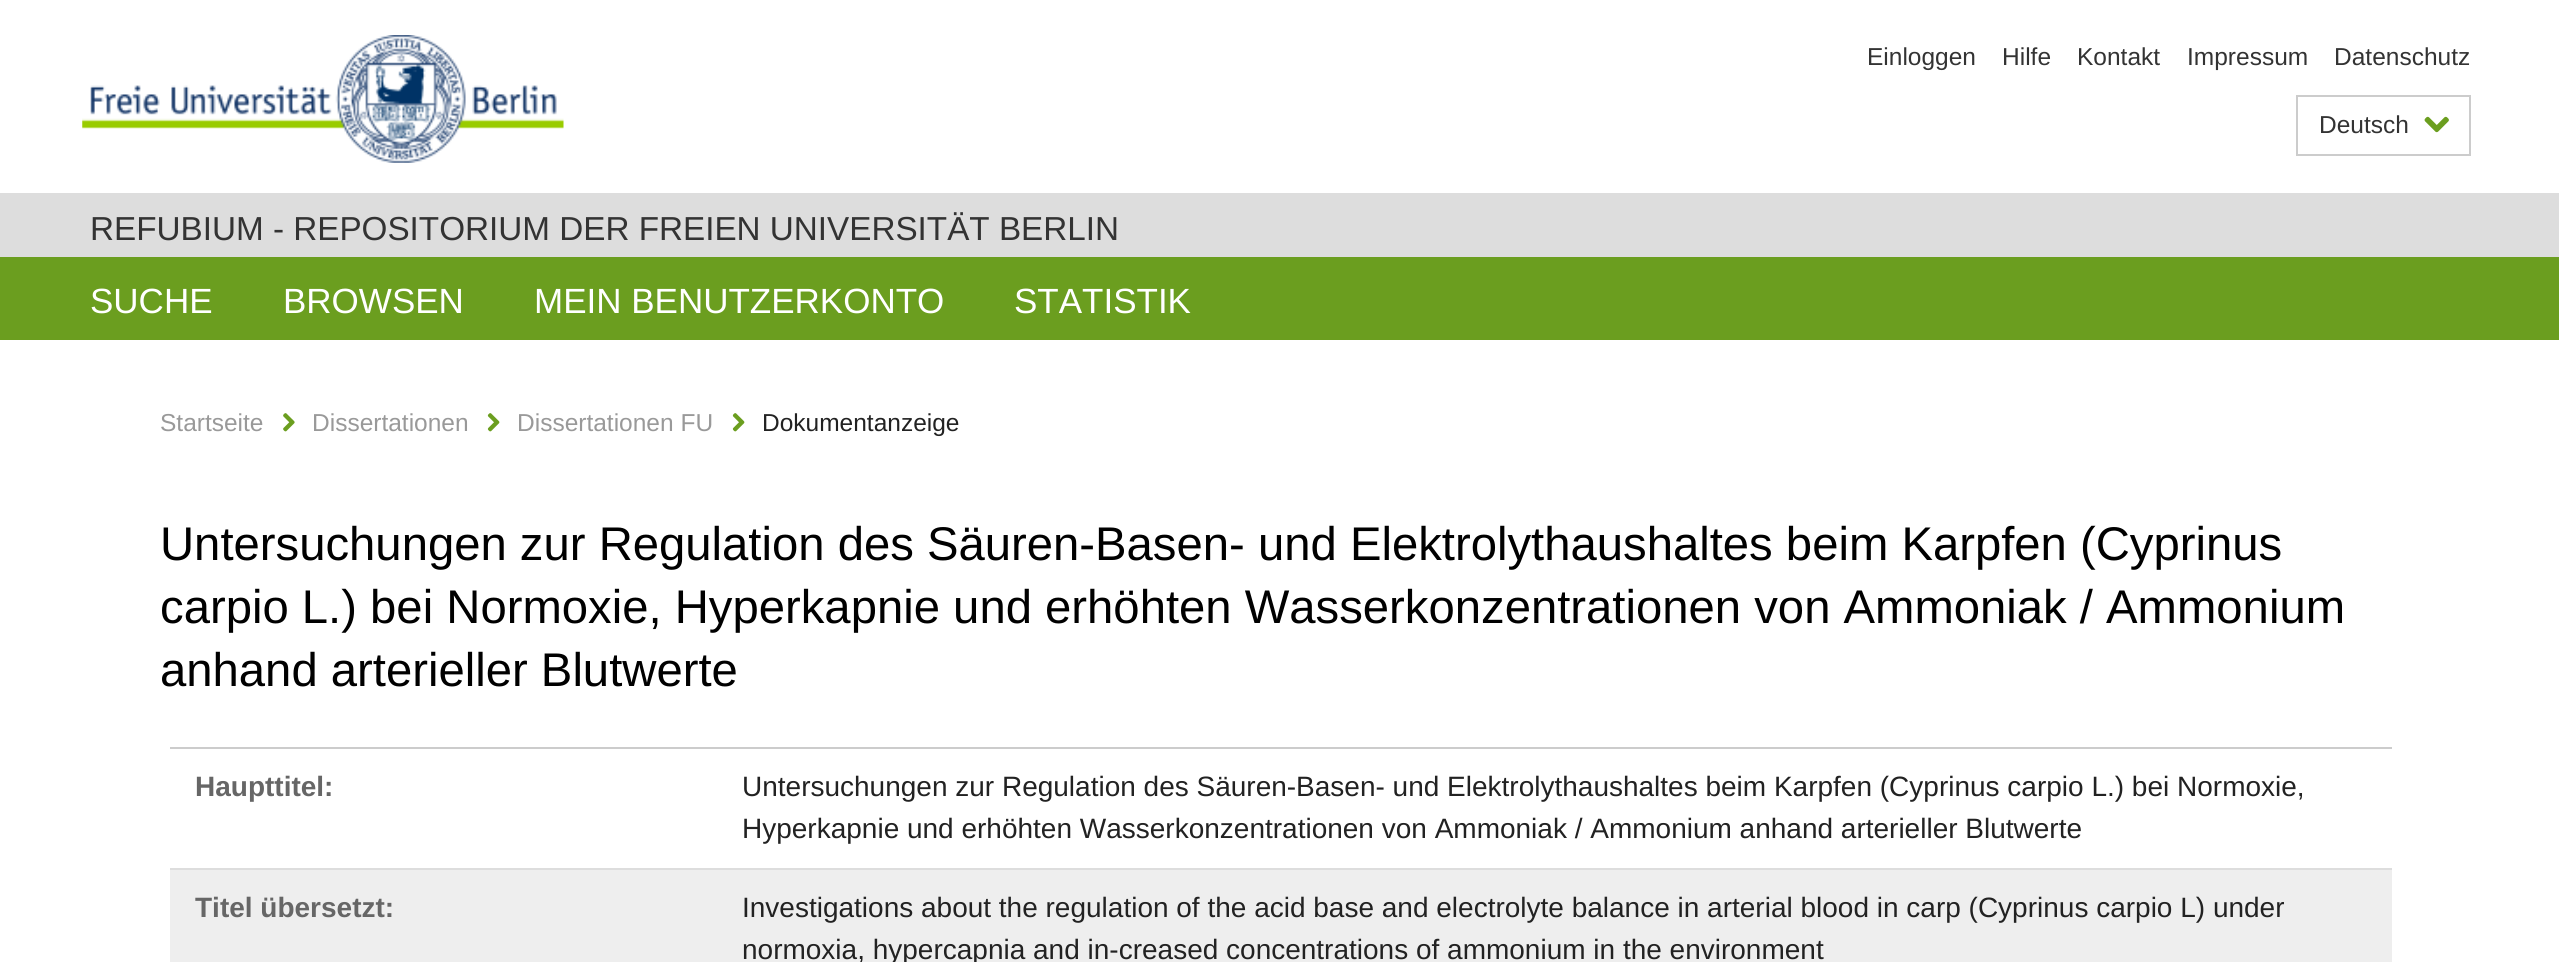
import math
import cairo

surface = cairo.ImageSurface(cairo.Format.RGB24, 2559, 962)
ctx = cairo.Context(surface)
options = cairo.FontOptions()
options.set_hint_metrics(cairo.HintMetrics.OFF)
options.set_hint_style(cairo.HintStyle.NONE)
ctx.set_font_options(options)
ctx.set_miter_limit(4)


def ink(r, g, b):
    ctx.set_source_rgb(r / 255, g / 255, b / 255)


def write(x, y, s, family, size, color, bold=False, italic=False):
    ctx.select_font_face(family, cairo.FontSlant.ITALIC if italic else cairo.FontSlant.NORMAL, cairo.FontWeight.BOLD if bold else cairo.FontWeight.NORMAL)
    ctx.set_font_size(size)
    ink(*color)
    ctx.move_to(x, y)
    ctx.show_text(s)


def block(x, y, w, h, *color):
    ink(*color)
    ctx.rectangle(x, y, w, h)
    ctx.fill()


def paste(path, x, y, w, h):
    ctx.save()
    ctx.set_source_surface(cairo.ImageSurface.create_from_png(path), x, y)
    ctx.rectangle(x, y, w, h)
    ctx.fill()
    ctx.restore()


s1 = dict(family="Liberation Sans", size=24.5, color=(51, 51, 51))
s2 = dict(family="Liberation Sans", size=33.25, color=(51, 51, 51))
s3 = dict(family="Liberation Sans", size=35, color=(255, 255, 255))
s4 = dict(family="Liberation Sans", size=24.5, color=(153, 153, 153))
s5 = dict(family="Liberation Sans", size=24.5, color=(34, 34, 34))
s6 = dict(family="Liberation Sans", size=47.25, color=(0, 0, 0))
s7 = dict(family="Liberation Sans", size=28, color=(102, 102, 102), bold=True)
s8 = dict(family="Liberation Sans", size=28, color=(34, 34, 34))

ink(255, 255, 255)
ctx.paint()
paste("pic1.png", 82, 35, 482, 128)
write(1867, 65, "Einloggen", **s1)
write(2002, 65, "Hilfe", **s1)
write(2077, 65, "Kontakt", **s1)
write(2187, 65, "Impressum", **s1)
write(2334, 65, "Datenschutz", **s1)
ctx.rectangle(2297, 96, 173, 59)
ink(204, 204, 204)
ctx.stroke()
write(2319, 133, "Deutsch", **s1)
paste("pic2.png", 2424, 116, 25, 17)
block(0, 193, 2559, 64, 221, 221, 221)
write(90, 240, "REFUBIUM - REPOSITORIUM DER FREIEN UNIVERSITÄT BERLIN", **s2)
block(0, 257, 2559, 83, 107, 158, 31)
write(90, 313, "SUCHE", **s3)
write(283, 313, "BROWSEN", **s3)
write(534, 313, "MEIN BENUTZERKONTO", **s3)
write(1014, 313, "STATISTIK", **s3)
write(160, 431, "Startseite", **s4)
paste("pic3.png", 283, 413, 12, 19)
write(312, 431, "Dissertationen", **s4)
paste("pic4.png", 487, 413, 13, 19)
write(517, 431, "Dissertationen FU", **s4)
paste("pic4.png", 732, 413, 13, 19)
write(762, 431, "Dokumentanzeige", **s5)
write(160, 560, "Untersuchungen zur Regulation des Säuren-Basen- und Elektrolythaushaltes beim Karpfen (Cyprinus", **s6)
write(160, 623, "carpio L.) bei Normoxie, Hyperkapnie und erhöhten Wasserkonzentrationen von Ammoniak / Ammonium", **s6)
write(160, 686, "anhand arterieller Blutwerte", **s6)
block(170, 747, 2222, 2, 204, 204, 204)
write(195, 796, "Haupttitel:", **s7)
write(742, 796, "Untersuchungen zur Regulation des Säuren-Basen- und Elektrolythaushaltes beim Karpfen (Cyprinus carpio L.) bei Normoxie,", **s8)
write(742, 838, "Hyperkapnie und erhöhten Wasserkonzentrationen von Ammoniak / Ammonium anhand arterieller Blutwerte", **s8)
block(170, 870, 2222, 92, 238, 238, 238)
block(170, 868, 2222, 2, 221, 221, 221)
write(195, 917, "Titel übersetzt:", **s7)
write(742, 917, "Investigations about the regulation of the acid base and electrolyte balance in arterial blood in carp (Cyprinus carpio L) under", **s8)
write(742, 959, "normoxia, hypercapnia and in-creased concentrations of ammonium in the environment", **s8)
surface.write_to_png("screenshot.png")
